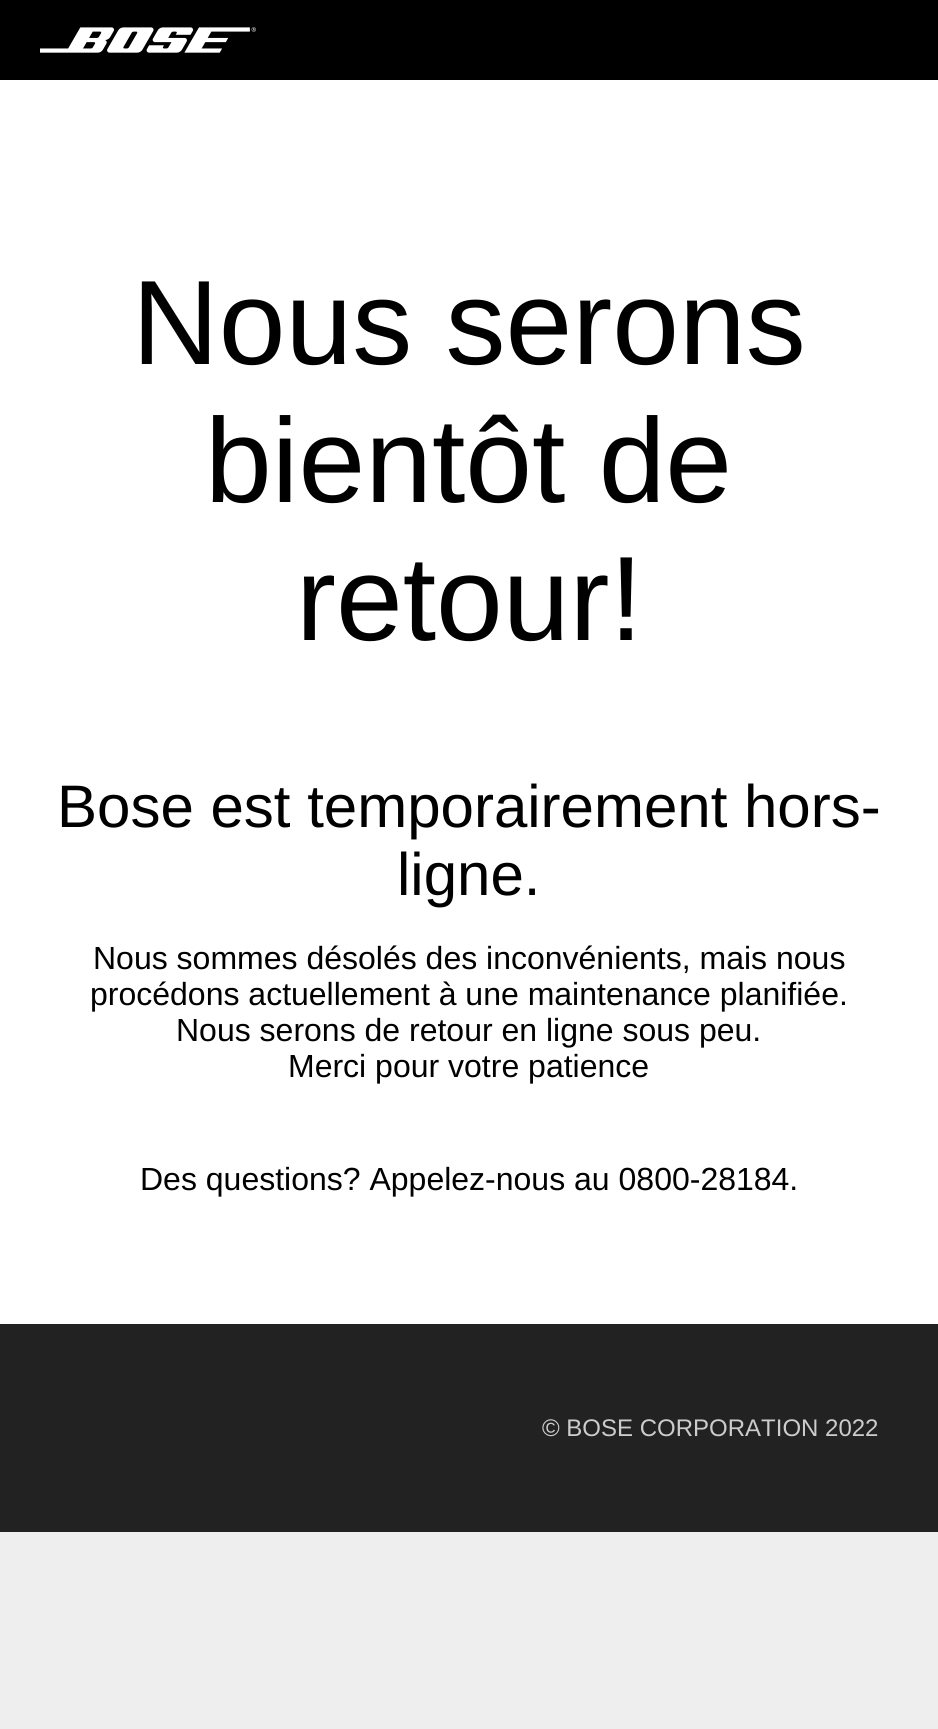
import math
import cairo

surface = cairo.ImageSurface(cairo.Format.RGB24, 938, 1729)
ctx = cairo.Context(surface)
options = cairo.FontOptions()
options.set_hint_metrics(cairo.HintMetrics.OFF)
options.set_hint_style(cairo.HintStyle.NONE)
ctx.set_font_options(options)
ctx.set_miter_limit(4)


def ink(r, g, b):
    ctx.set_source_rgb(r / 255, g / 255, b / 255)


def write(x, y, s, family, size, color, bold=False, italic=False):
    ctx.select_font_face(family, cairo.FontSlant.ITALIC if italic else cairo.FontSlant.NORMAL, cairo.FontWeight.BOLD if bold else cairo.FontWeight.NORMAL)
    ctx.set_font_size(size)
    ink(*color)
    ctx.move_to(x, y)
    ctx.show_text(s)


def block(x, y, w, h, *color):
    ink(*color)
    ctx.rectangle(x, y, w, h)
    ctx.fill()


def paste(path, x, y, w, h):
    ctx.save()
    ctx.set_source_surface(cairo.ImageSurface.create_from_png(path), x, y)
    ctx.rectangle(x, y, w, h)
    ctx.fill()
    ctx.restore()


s1 = dict(family="Liberation Sans", size=120, color=(0, 0, 0))
s2 = dict(family="Liberation Sans", size=60, color=(0, 0, 0))
s3 = dict(family="Liberation Sans", size=32, color=(0, 0, 0))
s4 = dict(family="Liberation Sans", size=24, color=(204, 204, 204))

ink(238, 238, 238)
ctx.paint()
block(0, 80, 938, 1244, 255, 255, 255)
block(0, 0, 938, 80, 0, 0, 0)
paste("pic1.png", 40, 27, 216, 26)
write(132, 364, "Nous serons", **s1)
write(205, 502, "bientôt de", **s1)
write(296, 640, "retour!", **s1)
write(57, 827, "Bose est temporairement hors-", **s2)
write(397, 895, "ligne.", **s2)
write(93, 969, "Nous sommes désolés des inconvénients, mais nous", **s3)
write(90, 1005, "procédons actuellement à une maintenance planifiée.", **s3)
write(176, 1041, "Nous serons de retour en ligne sous peu.", **s3)
write(288, 1077, "Merci pour votre patience", **s3)
write(140, 1190, "Des questions? Appelez-nous au 0800-28184.", **s3)
block(0, 1324, 938, 208, 34, 34, 34)
write(542, 1436, "© BOSE CORPORATION 2022", **s4)
surface.write_to_png("screenshot.png")
